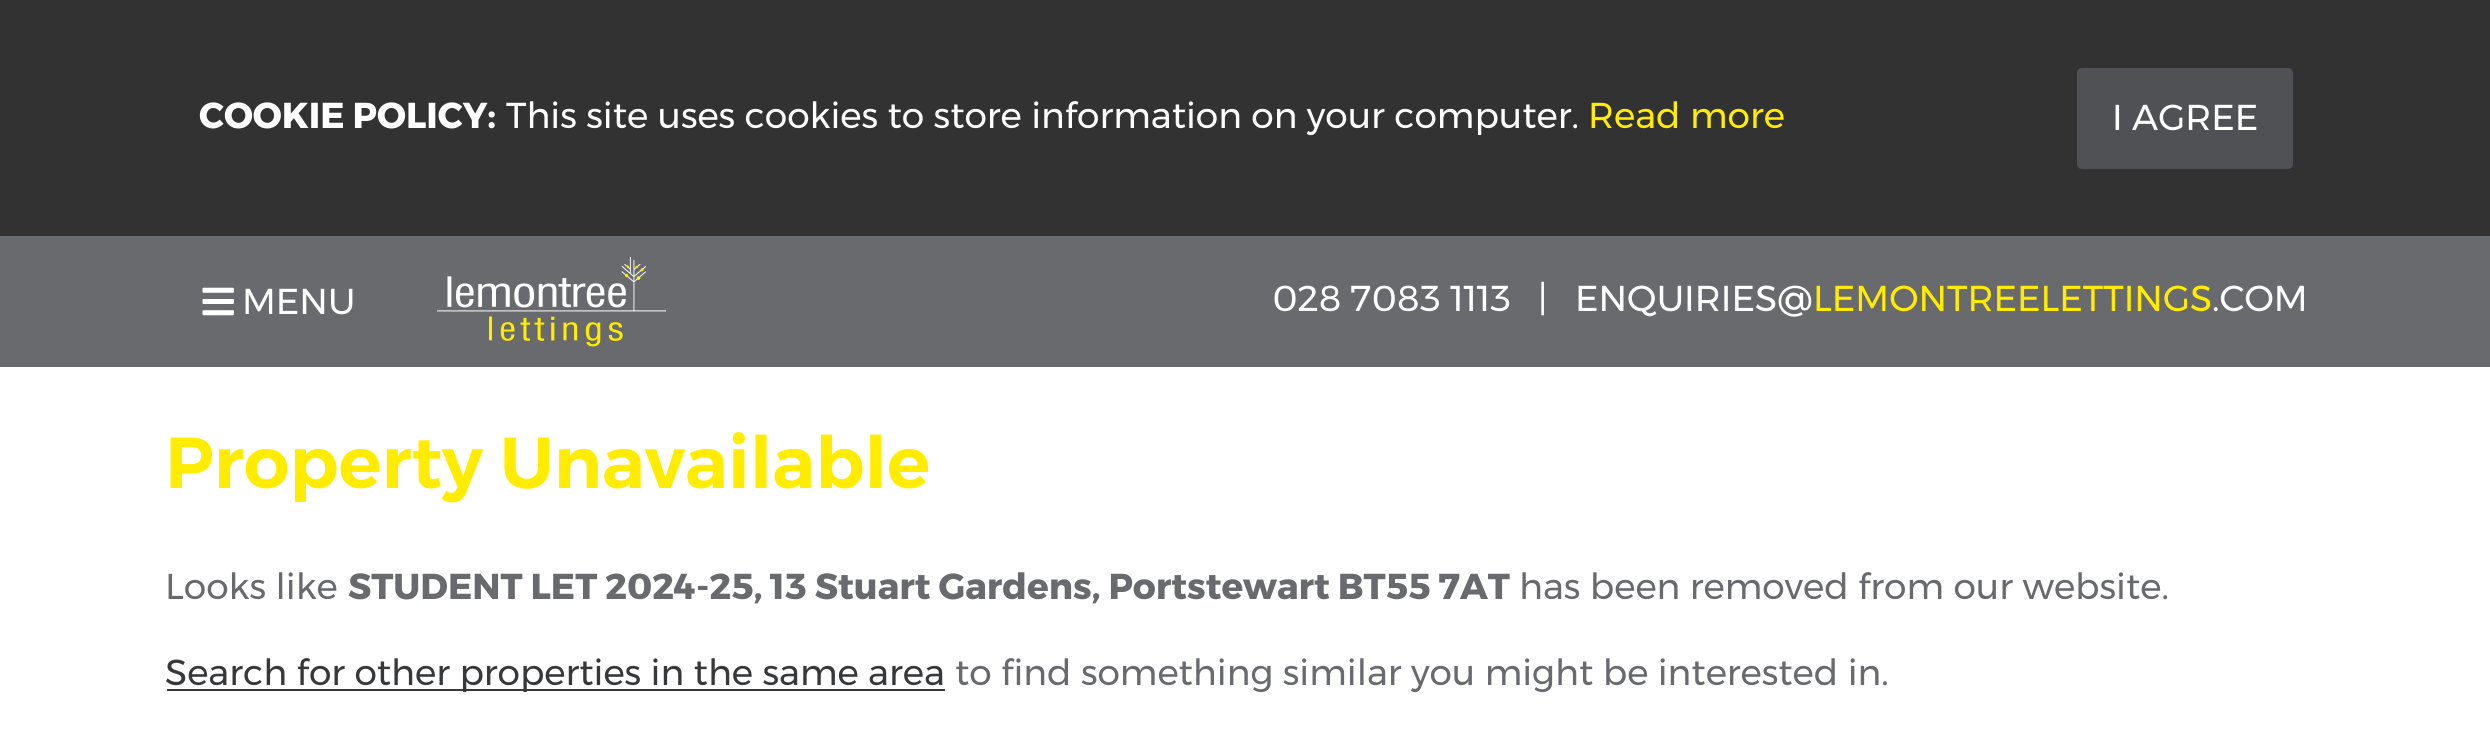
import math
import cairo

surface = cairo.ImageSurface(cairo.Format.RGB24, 2490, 732)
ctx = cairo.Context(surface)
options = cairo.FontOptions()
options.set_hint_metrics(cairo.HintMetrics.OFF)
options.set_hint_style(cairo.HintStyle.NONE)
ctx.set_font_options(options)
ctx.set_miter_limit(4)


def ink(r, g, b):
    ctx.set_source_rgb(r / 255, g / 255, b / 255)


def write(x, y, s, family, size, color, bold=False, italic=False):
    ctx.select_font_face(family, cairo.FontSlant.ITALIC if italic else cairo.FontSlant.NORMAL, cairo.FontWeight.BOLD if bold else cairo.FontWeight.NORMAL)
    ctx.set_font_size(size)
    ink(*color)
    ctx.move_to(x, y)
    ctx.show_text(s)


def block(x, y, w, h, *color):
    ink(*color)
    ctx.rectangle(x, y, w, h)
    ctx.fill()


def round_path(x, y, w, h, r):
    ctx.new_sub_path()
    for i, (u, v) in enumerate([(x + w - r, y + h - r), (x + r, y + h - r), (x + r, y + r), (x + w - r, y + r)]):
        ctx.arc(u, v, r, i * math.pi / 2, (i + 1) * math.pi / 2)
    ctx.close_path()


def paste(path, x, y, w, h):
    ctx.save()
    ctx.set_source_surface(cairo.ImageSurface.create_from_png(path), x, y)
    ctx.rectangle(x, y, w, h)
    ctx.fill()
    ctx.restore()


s1 = dict(family="Montserrat", size=36, color=(255, 255, 255), bold=True)
s2 = dict(family="Montserrat", size=36, color=(255, 255, 255))
s3 = dict(family="Montserrat", size=36, color=(255, 236, 0))
s4 = dict(family="Montserrat SemiBold", size=72, color=(255, 236, 0))
s5 = dict(family="Montserrat", size=36, color=(105, 106, 110))
s6 = dict(family="Montserrat", size=36, color=(105, 106, 110), bold=True)
s7 = dict(family="Montserrat", size=36, color=(55, 56, 58))

ink(255, 255, 255)
ctx.paint()
block(0, 0, 2490, 236, 50, 50, 50)
write(199, 128, "COOKIE POLICY:", **s1)
write(506, 128, "This site uses cookies to store information on your computer.", **s2)
write(1588, 128, "Read more", **s3)
ink(80, 81, 84)
round_path(2077, 68, 216, 101, 5)
ctx.fill()
write(2112, 130, "I AGREE", **s2)
block(0, 236, 2490, 131, 105, 106, 110)
paste("pic1.png", 202, 287, 32, 29)
write(242, 314, "MENU", **s2)
paste("pic2.png", 437, 257, 229, 90)
write(1272, 311, "028 7083 1113", **s2)
write(1538, 311, "|", **s2)
write(1575, 311, "ENQUIRIES@", **s2)
write(1813, 311, "LEMONTREELETTINGS", **s3)
write(2212, 311, ".COM", **s2)
write(165, 488, "Property Unavailable", **s4)
write(165, 599, "Looks like", **s5)
write(348, 599, "STUDENT LET 2024-25, 13 Stuart Gardens, Portstewart BT55 7AT", **s6)
write(1519, 599, "has been removed from our website.", **s5)
block(167, 689, 778, 2, 55, 56, 58)
write(165, 685, "Search for other properties in the same area", **s7)
write(955, 685, "to find something similar you might be interested in.", **s5)
surface.write_to_png("screenshot.png")
